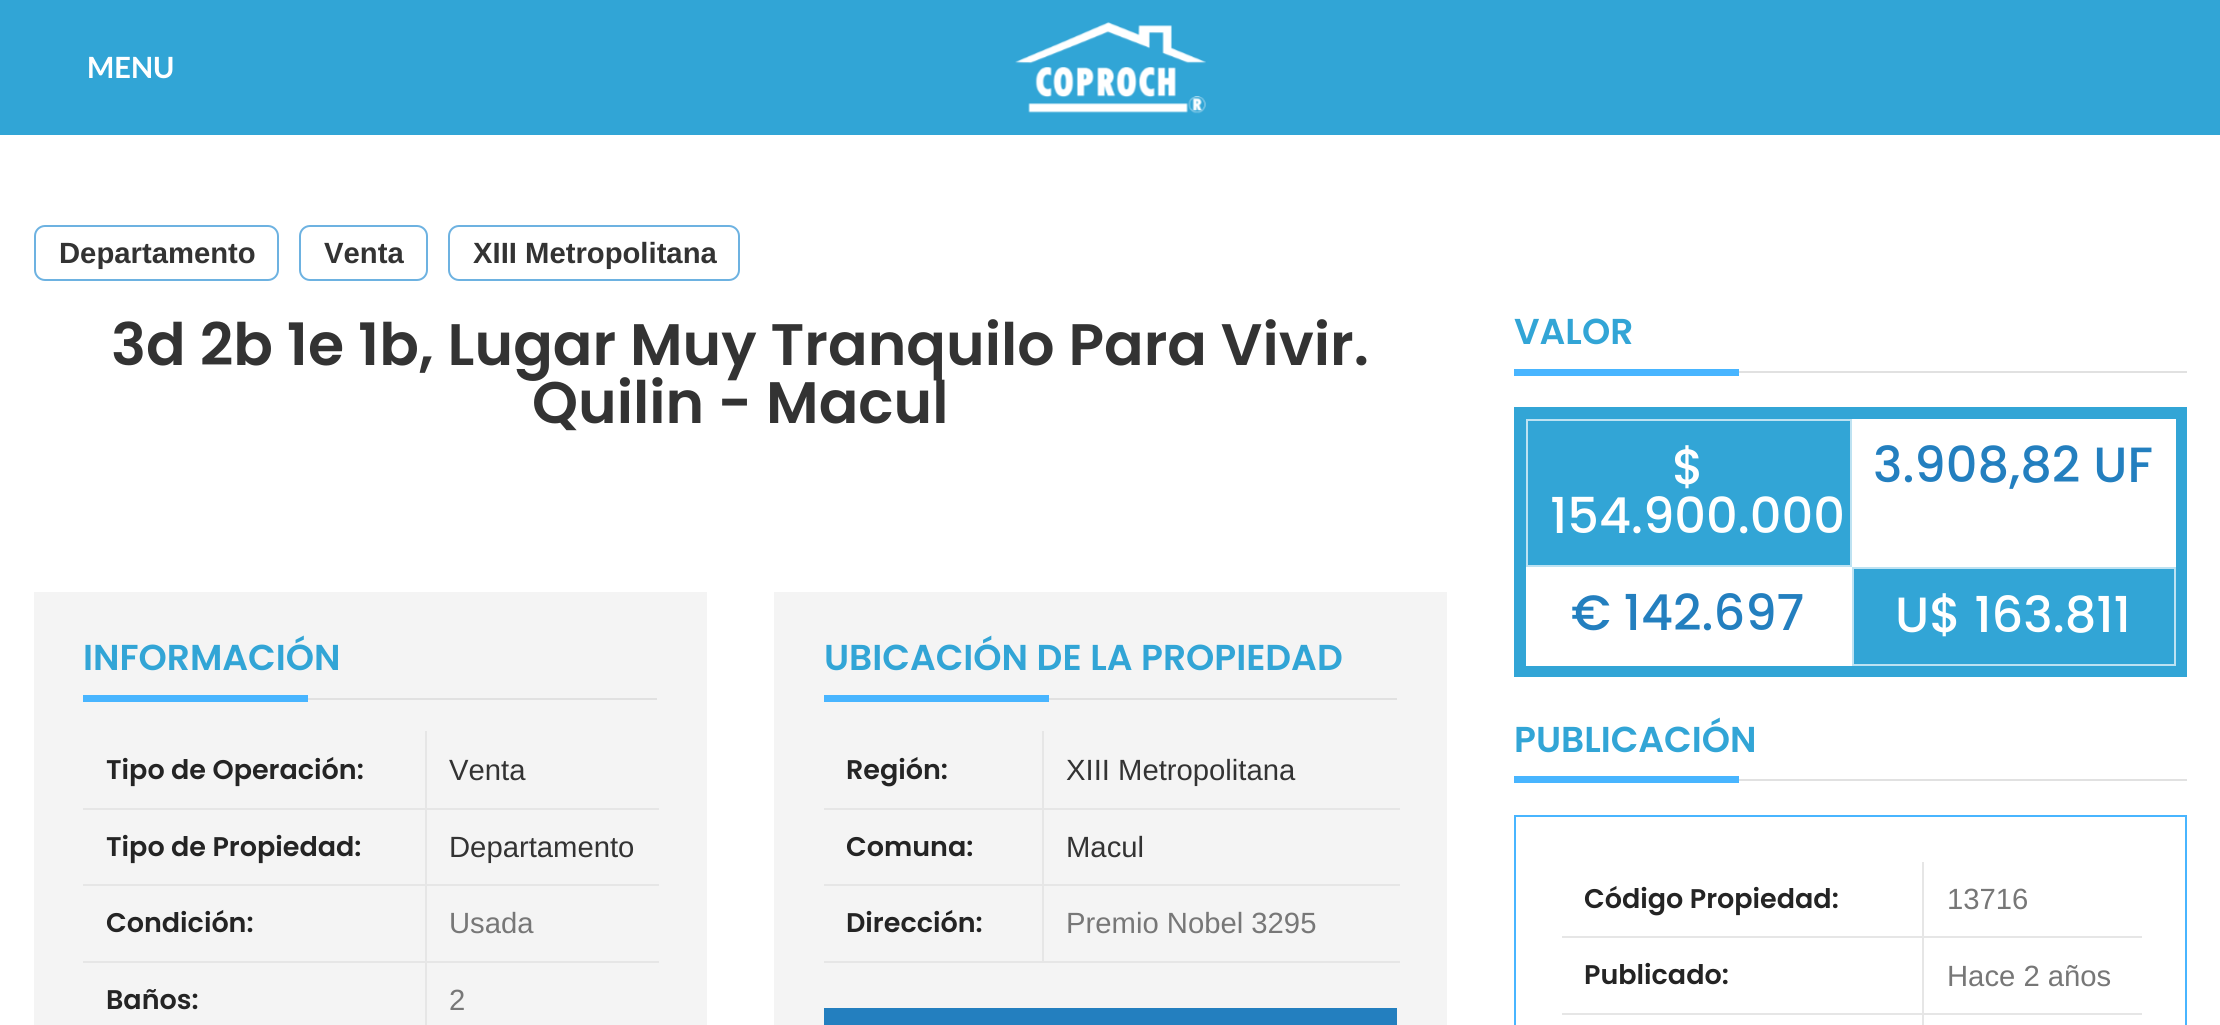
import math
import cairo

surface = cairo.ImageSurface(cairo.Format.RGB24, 2220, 1025)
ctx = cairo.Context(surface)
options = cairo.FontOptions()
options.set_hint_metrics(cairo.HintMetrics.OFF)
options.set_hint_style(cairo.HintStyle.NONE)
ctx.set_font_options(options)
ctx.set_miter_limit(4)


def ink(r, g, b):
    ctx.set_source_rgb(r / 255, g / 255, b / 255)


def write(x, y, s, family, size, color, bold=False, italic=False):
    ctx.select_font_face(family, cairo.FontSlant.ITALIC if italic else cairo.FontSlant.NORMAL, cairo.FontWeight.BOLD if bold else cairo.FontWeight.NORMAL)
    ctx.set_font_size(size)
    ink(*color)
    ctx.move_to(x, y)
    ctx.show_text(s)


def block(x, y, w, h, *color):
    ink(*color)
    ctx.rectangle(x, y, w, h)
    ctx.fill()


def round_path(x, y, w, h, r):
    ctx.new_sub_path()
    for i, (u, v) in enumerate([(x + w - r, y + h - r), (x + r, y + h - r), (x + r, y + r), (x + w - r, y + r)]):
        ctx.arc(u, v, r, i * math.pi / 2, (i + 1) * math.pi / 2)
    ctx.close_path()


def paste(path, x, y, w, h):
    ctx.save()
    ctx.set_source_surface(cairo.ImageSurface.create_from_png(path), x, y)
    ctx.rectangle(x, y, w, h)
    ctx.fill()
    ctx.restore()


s1 = dict(family="Lato", size=29.25, color=(255, 255, 255), bold=True)
s2 = dict(family="Liberation Sans", size=29.25, color=(51, 51, 51), bold=True)
s3 = dict(family="Poppins SemiBold", size=58.5, color=(51, 51, 51))
s4 = dict(family="Poppins SemiBold", size=36, color=(50, 165, 214))
s5 = dict(family="Poppins SemiBold", size=27, color=(36, 36, 36))
s6 = dict(family="Liberation Sans", size=29.25, color=(51, 51, 51))
s7 = dict(family="Liberation Sans", size=29.25, color=(119, 119, 119))
s8 = dict(family="Poppins Medium", size=49.5, color=(255, 255, 255))
s9 = dict(family="Poppins Medium", size=49.5, color=(35, 127, 191))

ink(255, 255, 255)
ctx.paint()
block(0, 0, 2220, 135, 49, 165, 214)
write(87, 78, "MENU", **s1)
paste("pic1.png", 1015, 22, 191, 92)
round_path(35, 226, 243, 54, 10)
ink(109, 178, 225)
ctx.stroke()
write(59, 263, "Departamento", **s2)
round_path(300, 226, 127, 54, 10)
ink(109, 178, 225)
ctx.stroke()
write(324, 263, "Venta", **s2)
round_path(449, 226, 290, 54, 10)
ink(109, 178, 225)
ctx.stroke()
write(473, 263, "XIII Metropolitana", **s2)
write(111, 365, "3d 2b 1e 1b, Lugar Muy Tranquilo Para Vivir.", **s3)
write(532, 423, "Quilin - Macul", **s3)
block(34, 592, 673, 433, 244, 244, 244)
block(308, 698, 349, 2, 225, 225, 225)
write(83, 670, "INFORMACIÓN", **s4)
block(83, 695, 225, 7, 72, 181, 255)
block(425, 961, 2, 64, 230, 230, 230)
block(425, 961, 234, 2, 230, 230, 230)
block(425, 884, 2, 79, 230, 230, 230)
block(425, 884, 234, 2, 230, 230, 230)
block(425, 808, 2, 79, 230, 230, 230)
block(425, 808, 234, 2, 230, 230, 230)
block(425, 731, 2, 79, 230, 230, 230)
block(83, 808, 345, 2, 230, 230, 230)
write(106, 779, "Tipo de Operación:", **s5)
write(449, 780, "Venta", **s6)
block(83, 884, 345, 2, 230, 230, 230)
write(106, 856, "Tipo de Propiedad:", **s5)
write(449, 857, "Departamento", **s6)
block(83, 961, 345, 2, 230, 230, 230)
write(106, 932, "Condición:", **s5)
write(449, 933, "Usada", **s7)
write(106, 1009, "Baños:", **s5)
write(449, 1010, "2", **s7)
block(774, 592, 673, 433, 244, 244, 244)
block(1049, 698, 348, 2, 225, 225, 225)
write(824, 670, "UBICACIÓN DE LA PROPIEDAD", **s4)
block(824, 695, 225, 7, 72, 181, 255)
block(1042, 961, 358, 2, 230, 230, 230)
block(1042, 884, 2, 79, 230, 230, 230)
block(1042, 884, 358, 2, 230, 230, 230)
block(1042, 808, 2, 79, 230, 230, 230)
block(1042, 808, 358, 2, 230, 230, 230)
block(1042, 731, 2, 79, 230, 230, 230)
block(824, 808, 220, 2, 230, 230, 230)
write(846, 779, "Región:", **s5)
write(1066, 780, "XIII Metropolitana", **s6)
block(824, 884, 220, 2, 230, 230, 230)
write(846, 856, "Comuna:", **s5)
write(1066, 857, "Macul", **s6)
block(824, 961, 220, 2, 230, 230, 230)
write(846, 932, "Dirección:", **s5)
write(1066, 933, "Premio Nobel 3295", **s7)
block(824, 1008, 573, 17, 35, 127, 191)
block(1739, 371, 448, 2, 225, 225, 225)
write(1514, 344, "VALOR", **s4)
block(1514, 369, 225, 7, 72, 181, 255)
block(1514, 407, 673, 270, 50, 165, 214)
ctx.rectangle(1527, 420, 324, 146)
ink(189, 226, 242)
ctx.stroke()
write(1672, 484, "$", **s8)
write(1550, 533, "154.900.000", **s8)
block(1852, 419, 324, 148, 255, 255, 255)
write(1873, 482, "3.908,82 UF", **s9)
block(1526, 567, 326, 99, 255, 255, 255)
write(1571, 630, "€ 142.697", **s9)
ctx.rectangle(1853, 568, 322, 97)
ink(189, 226, 242)
ctx.stroke()
write(1895, 632, "U$ 163.811", **s8)
block(1739, 779, 448, 2, 225, 225, 225)
write(1514, 752, "PUBLICACIÓN", **s4)
block(1514, 776, 225, 7, 72, 181, 255)
ctx.rectangle(1515, 816, 671, 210)
ctx.stroke()
block(1922, 1013, 2, 12, 230, 230, 230)
block(1922, 1013, 220, 2, 230, 230, 230)
block(1922, 936, 2, 79, 230, 230, 230)
block(1922, 936, 220, 2, 230, 230, 230)
block(1922, 862, 2, 76, 230, 230, 230)
block(1562, 936, 362, 2, 230, 230, 230)
write(1584, 908, "Código Propiedad:", **s5)
write(1947, 909, "13716", **s7)
block(1562, 1013, 362, 2, 230, 230, 230)
write(1584, 984, "Publicado:", **s5)
write(1947, 986, "Hace 2 años", **s7)
surface.write_to_png("screenshot.png")
